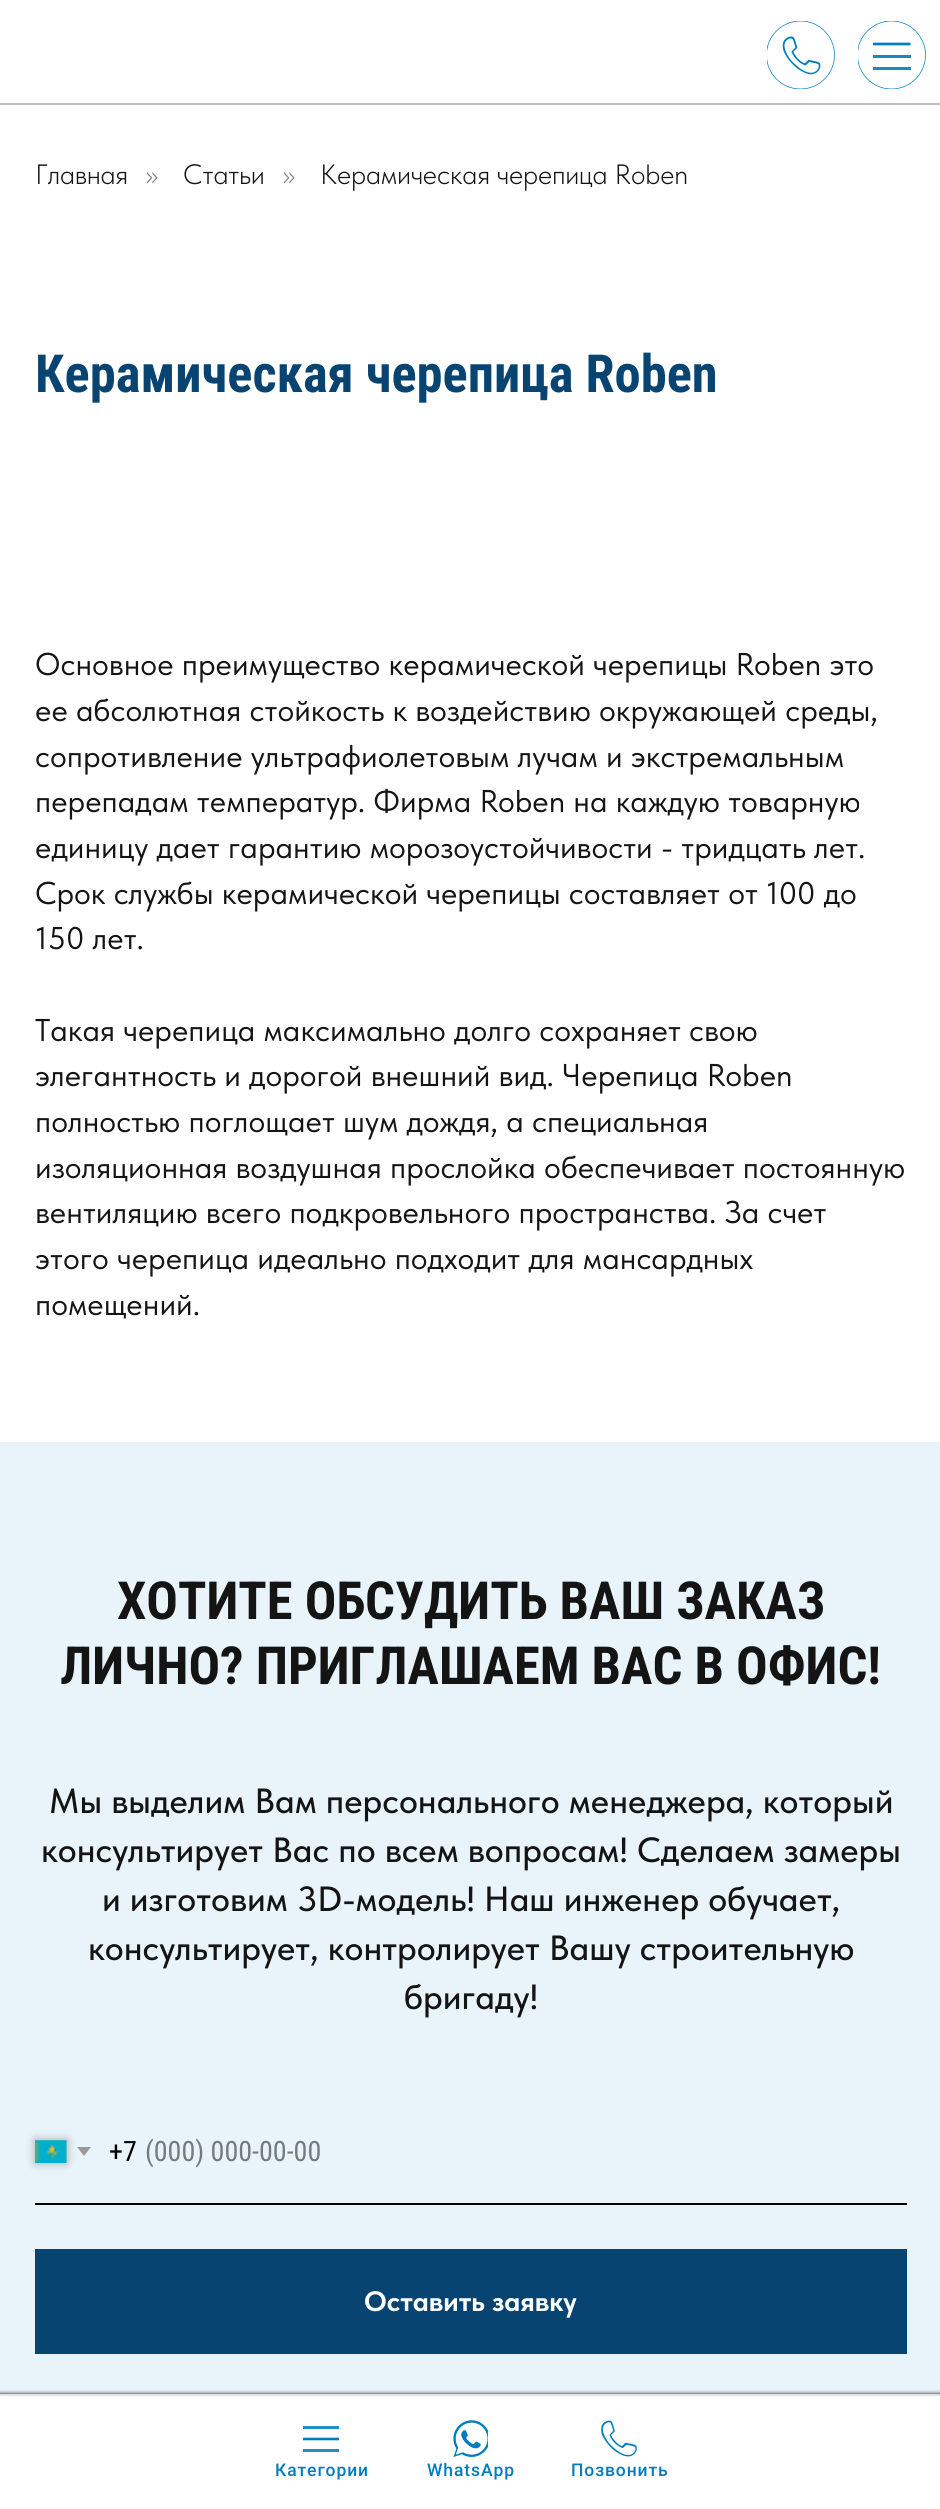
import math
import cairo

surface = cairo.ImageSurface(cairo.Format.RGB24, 940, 2509)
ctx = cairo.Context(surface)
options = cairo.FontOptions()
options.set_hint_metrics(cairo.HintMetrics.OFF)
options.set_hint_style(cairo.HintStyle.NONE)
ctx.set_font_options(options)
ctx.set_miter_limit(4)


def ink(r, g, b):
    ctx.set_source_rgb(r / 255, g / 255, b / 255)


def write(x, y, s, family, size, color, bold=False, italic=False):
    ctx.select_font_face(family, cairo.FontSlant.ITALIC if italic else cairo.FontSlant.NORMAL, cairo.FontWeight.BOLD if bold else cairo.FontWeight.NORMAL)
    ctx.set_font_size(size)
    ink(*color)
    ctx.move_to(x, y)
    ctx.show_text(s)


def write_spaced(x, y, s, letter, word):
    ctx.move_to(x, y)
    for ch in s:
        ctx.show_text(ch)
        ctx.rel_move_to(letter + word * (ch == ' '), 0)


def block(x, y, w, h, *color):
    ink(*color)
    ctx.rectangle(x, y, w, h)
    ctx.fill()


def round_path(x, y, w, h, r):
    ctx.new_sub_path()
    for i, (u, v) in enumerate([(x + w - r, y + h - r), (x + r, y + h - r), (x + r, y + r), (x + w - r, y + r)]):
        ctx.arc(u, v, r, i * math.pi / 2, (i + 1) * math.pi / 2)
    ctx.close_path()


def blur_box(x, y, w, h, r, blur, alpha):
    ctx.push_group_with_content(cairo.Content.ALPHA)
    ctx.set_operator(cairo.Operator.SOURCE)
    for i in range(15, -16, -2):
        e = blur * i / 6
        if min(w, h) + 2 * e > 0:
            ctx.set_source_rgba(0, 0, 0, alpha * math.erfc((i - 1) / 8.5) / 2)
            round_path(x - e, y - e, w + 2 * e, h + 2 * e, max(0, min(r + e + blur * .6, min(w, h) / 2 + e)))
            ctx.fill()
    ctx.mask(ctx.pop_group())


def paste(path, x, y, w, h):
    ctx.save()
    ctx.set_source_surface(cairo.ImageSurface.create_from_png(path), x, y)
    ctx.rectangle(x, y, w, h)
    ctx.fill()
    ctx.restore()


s1 = dict(family="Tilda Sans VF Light", size=28, color=(20, 20, 20))
s2 = dict(family="Tilda Sans VF Light", size=28, color=(133, 133, 133))
s3 = dict(family="Roboto Condensed", size=52.5, color=(8, 68, 113), bold=True)
s4 = dict(family="Tilda Sans VF", size=31.5, color=(20, 20, 20))
s5 = dict(family="Roboto Condensed", size=52.5, color=(20, 20, 20), bold=True)
s6 = dict(family="Tilda Sans VF Medium", size=35, color=(20, 20, 20))
s7 = dict(family="Roboto Condensed", size=28, color=(0, 0, 0))
s8 = dict(family="Roboto Condensed", size=28, color=(116, 122, 125))
s9 = dict(family="Tilda Sans VF", size=28, color=(255, 255, 255), bold=True)

ink(255, 255, 255)
ctx.paint()
write(35, 184, "Главная", **s1)
write(145, 184, "»", **s2)
write(183, 184, "Статьи", **s1)
write(282, 184, "»", **s2)
write(320, 184, "Керамическая черепица Roben", **s1)
write(35, 392, "Керамическая черепица Roben", **s3)
write(35, 675, "Основное преимущество керамической черепицы Roben это", **s4)
write(35, 721, "ее абсолютная стойкость к воздействию окружающей среды,", **s4)
write(35, 767, "сопротивление ультрафиолетовым лучам и экстремальным", **s4)
write(35, 812, "перепадам температур. Фирма Roben на каждую товарную", **s4)
write(35, 858, "единицу дает гарантию морозоустойчивости - тридцать лет.", **s4)
write(35, 904, "Срок службы керамической черепицы составляет от 100 до", **s4)
write(35, 949, "150 лет.", **s4)
write(35, 1041, "Такая черепица максимально долго сохраняет свою", **s4)
write(35, 1086, "элегантность и дорогой внешний вид. Черепица Roben", **s4)
write(35, 1132, "полностью поглощает шум дождя, а специальная", **s4)
write(35, 1178, "изоляционная воздушная прослойка обеспечивает постоянную", **s4)
write(35, 1223, "вентиляцию всего подкровельного пространства. За счет", **s4)
write(35, 1269, "этого черепица идеально подходит для мансардных", **s4)
write(35, 1315, "помещений.", **s4)
block(0, 1442, 940, 952, 232, 243, 250)
write(117, 1619, "ХОТИТЕ ОБСУДИТЬ ВАШ ЗАКАЗ", **s5)
write(60, 1684, "ЛИЧНО? ПРИГЛАШАЕМ ВАС В ОФИС!", **s5)
write(49, 1813, "Мы выделим Вам персонального менеджера, который", **s6)
write(41, 1862, "консультирует Вас по всем вопросам! Сделаем замеры", **s6)
write(102, 1911, "и изготовим 3D-модель! Наш инженер обучает,", **s6)
write(88, 1960, "консультирует, контролирует Вашу строительную", **s6)
write(404, 2009, "бригаду!", **s6)
block(35, 2203, 872, 2, 0, 0, 0)
ink(0, 0, 0)
blur_box(35, 2140, 32, 23, 0, 4.5, 0.3)
block(35, 2140, 32, 23, 197, 197, 197)
paste("pic1.png", 35, 2140, 32, 23)
ink(154, 154, 154)
ctx.new_path()
ctx.move_to(77, 2147)
ctx.line_to(91, 2147)
ctx.line_to(84, 2156)
ctx.close_path()
ctx.fill()
write(109, 2161, "+7", **s7)
write(145, 2161, "(000) 000-00-00", **s8)
block(35, 2249, 872, 105, 8, 68, 113)
write(364, 2311, "Оставить заявку", **s9)
paste("pic2.png", 767, 21, 68, 68)
ctx.save()
ctx.rectangle(858, 21, 68, 68)
ctx.clip()
ctx.arc(891.5, 55, 34, 0, 2 * math.pi)
ink(0, 125, 190)
ctx.set_line_width(0.7)
ctx.stroke()
ctx.restore()
ctx.new_path()
ctx.move_to(873, 44)
ctx.line_to(910.5, 44)
ink(0, 125, 190)
ctx.set_line_width(2.7)
ctx.stroke()
block(873, 55, 38, 3, 26, 138, 197)
block(873, 67, 38, 3, 26, 138, 197)
block(0, 103, 940, 2, 191, 191, 191)
ink(0, 0, 0)
blur_box(0, 2394, 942, 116, 0, 2, 1)
block(0, 2396, 940, 113, 255, 255, 255)
block(0, 2394, 940, 2, 226, 226, 226)
block(303, 2426, 36, 3, 34, 142, 199)
ctx.new_path()
ctx.move_to(303, 2439)
ctx.line_to(339, 2439)
ink(0, 125, 190)
ctx.set_line_width(2.6)
ctx.stroke()
block(303, 2449, 36, 3, 34, 142, 199)
ctx.select_font_face("Roboto Medium")
ctx.set_font_size(17.5)
ink(0, 125, 190)
write_spaced(275, 2476, "Категории", 0.9, 0)
paste("pic3.png", 453, 2420, 35, 37)
write_spaced(427, 2476, "WhatsApp", 0.9, 0)
paste("pic4.png", 601, 2420, 36, 37)
write_spaced(571, 2476, "Позвонить", 0.9, 0)
surface.write_to_png("screenshot.png")
